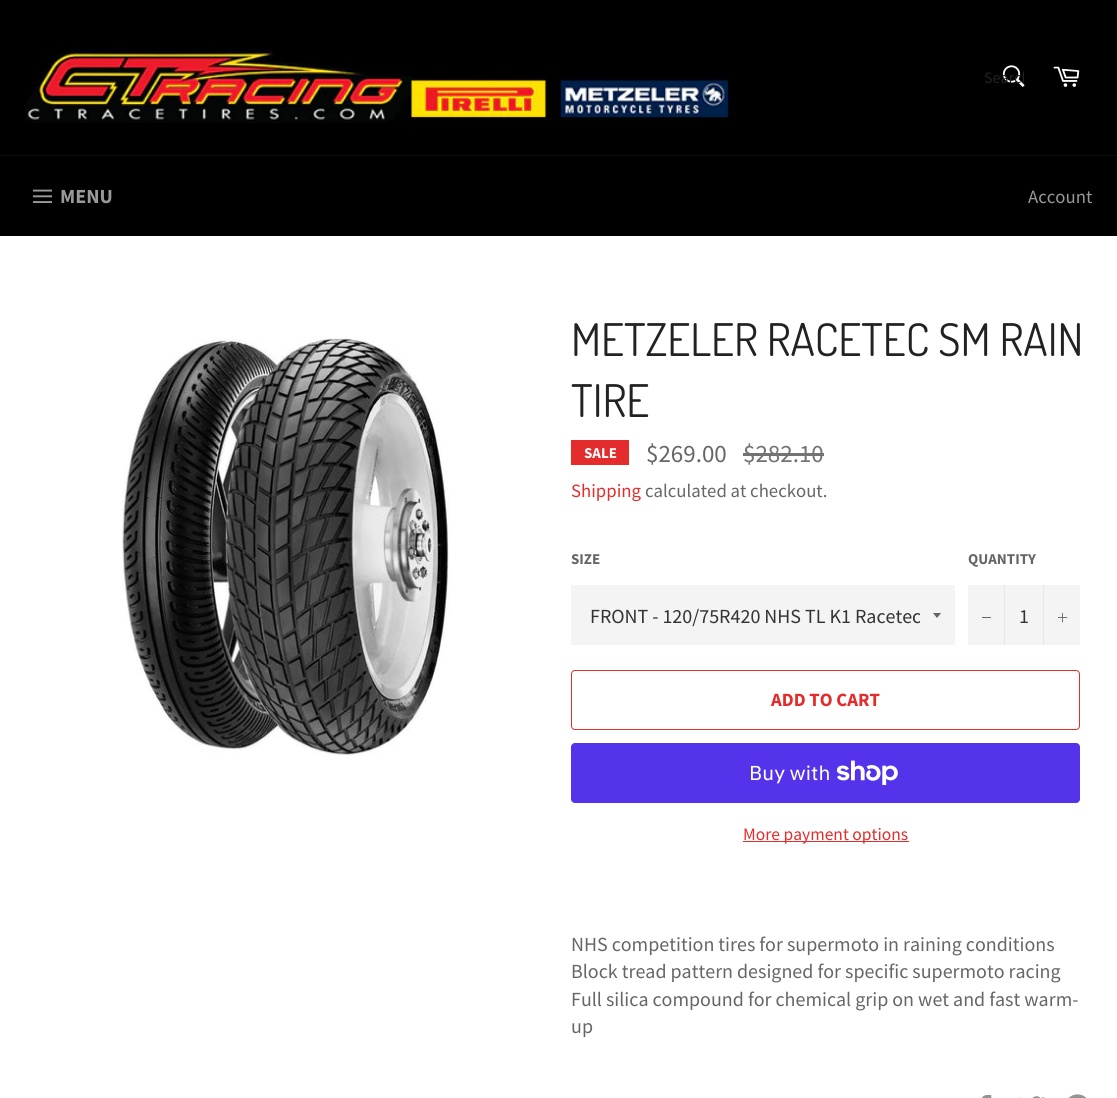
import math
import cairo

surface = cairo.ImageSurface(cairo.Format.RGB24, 1117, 1098)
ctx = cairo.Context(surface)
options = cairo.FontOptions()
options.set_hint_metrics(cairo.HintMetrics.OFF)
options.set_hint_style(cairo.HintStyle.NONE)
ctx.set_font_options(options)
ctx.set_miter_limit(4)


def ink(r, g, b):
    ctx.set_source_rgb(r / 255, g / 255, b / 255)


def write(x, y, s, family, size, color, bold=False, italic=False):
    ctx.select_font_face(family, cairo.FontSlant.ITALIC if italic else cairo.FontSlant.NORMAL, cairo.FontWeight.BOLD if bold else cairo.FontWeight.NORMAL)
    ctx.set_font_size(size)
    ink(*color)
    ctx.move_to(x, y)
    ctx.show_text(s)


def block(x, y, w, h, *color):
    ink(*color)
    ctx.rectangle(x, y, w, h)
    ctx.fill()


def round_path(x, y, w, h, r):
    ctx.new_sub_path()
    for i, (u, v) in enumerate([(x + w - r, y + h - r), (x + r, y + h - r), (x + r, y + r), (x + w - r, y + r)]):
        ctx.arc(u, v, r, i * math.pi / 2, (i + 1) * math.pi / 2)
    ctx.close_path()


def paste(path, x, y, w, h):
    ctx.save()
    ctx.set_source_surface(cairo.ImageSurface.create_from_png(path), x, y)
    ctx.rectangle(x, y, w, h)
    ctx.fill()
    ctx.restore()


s1 = dict(family="Source Sans Pro", size=16, color=(34, 34, 34))
s2 = dict(family="Source Sans Pro", size=20, color=(153, 153, 153), bold=True)
s3 = dict(family="Source Sans Pro", size=18.75, color=(153, 153, 153))
s4 = dict(family="Dosis", size=45, color=(34, 34, 34))
s5 = dict(family="Source Sans Pro", size=15, color=(255, 255, 255), bold=True)
s6 = dict(family="Source Sans Pro", size=25, color=(102, 102, 102))
s7 = dict(family="Source Sans Pro", size=25, color=(115, 115, 115))
s8 = dict(family="Source Sans Pro", size=18.75, color=(227, 44, 43))
s9 = dict(family="Source Sans Pro", size=18.75, color=(102, 102, 102))
s10 = dict(family="Source Sans Pro", size=15, color=(102, 102, 102), bold=True)
s11 = dict(family="Source Sans Pro", size=20, color=(51, 51, 51))
s12 = dict(family="Source Sans Pro", size=18.75, color=(227, 44, 43), bold=True)
s13 = dict(family="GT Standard", size=20, color=(255, 255, 255))
s14 = dict(family="Source Sans Pro", size=17.5, color=(227, 44, 43))
s15 = dict(family="Source Sans Pro", size=20, color=(102, 102, 102))

ink(255, 255, 255)
ctx.paint()
block(0, 0, 1117, 155, 0, 0, 0)
paste("pic1.png", 25, 49, 711, 74)
paste("pic2.png", 1002, 65, 23, 22)
ctx.save()
ctx.rectangle(984, 68, 40, 21)
ctx.clip()
write(984, 83, "Search", **s1)
ctx.restore()
paste("pic3.png", 1053, 66, 27, 21)
block(0, 156, 1117, 80, 0, 0, 0)
block(0, 155, 1117, 1, 13, 13, 13)
paste("pic4.png", 32, 189, 21, 14)
write(60, 203, "MENU", **s2)
write(1028, 203, "Account", **s3)
paste("pic5.png", 122, 338, 328, 418)
write(571, 356, "METZELER RACETEC SM RAIN", **s4)
write(571, 417, "TIRE", **s4)
block(571, 440, 58, 25, 227, 44, 43)
write(584, 458, "SALE", **s5)
write(646, 462, "$269.00", **s6)
write(743, 462, "$282.10", **s7)
block(743, 453, 81, 3, 115, 115, 115)
write(571, 497, "Shipping", **s8)
write(645, 497, "calculated at checkout.", **s9)
write(571, 564, "SIZE", **s10)
block(571, 585, 384, 60, 244, 244, 244)
ctx.save()
ctx.rectangle(933, 613, 10, 6)
ctx.clip()
ink(102, 102, 102)
ctx.new_path()
ctx.move_to(932.5, 612.5)
ctx.line_to(937, 618)
ctx.line_to(941.5, 612.5)
ctx.close_path()
ctx.fill()
ctx.restore()
ctx.save()
ctx.rectangle(590, 601, 330, 28)
ctx.clip()
write(590, 623, "FRONT - 120/75R420 NHS TL K1 Racetec", **s11)
ctx.restore()
write(968, 564, "QUANTITY", **s10)
block(968, 585, 112, 60, 244, 244, 244)
block(1004, 585, 1, 60, 231, 231, 231)
block(982, 617, 9, 1, 102, 102, 102)
write(1019, 623, "1", **s11)
block(1043, 585, 1, 60, 231, 231, 231)
paste("pic6.png", 1058, 613, 10, 10)
round_path(571.5, 670.5, 508, 59, 3.5)
ink(227, 44, 43)
ctx.set_line_width(1)
ctx.stroke()
write(771, 706, "ADD TO CART", **s12)
ink(84, 51, 235)
round_path(571, 743, 509, 60, 4)
ctx.fill()
write(749, 780, "Buy with", **s13)
paste("pic7.png", 836, 760, 62, 25)
block(743, 841, 166, 1, 227, 44, 43)
write(743, 840, "More payment options", **s14)
write(571, 951, "NHS competition tires for supermoto in raining conditions", **s15)
write(571, 978, "Block tread pattern designed for specific supermoto racing", **s15)
write(571, 1006, "Full silica compound for chemical grip on wet and fast warm-", **s15)
write(571, 1033, "up", **s15)
paste("pic8.png", 982, 1095, 10, 3)
paste("pic9.png", 1019, 1096, 26, 2)
paste("pic10.png", 1068, 1094, 19, 4)
surface.write_to_png("screenshot.png")
